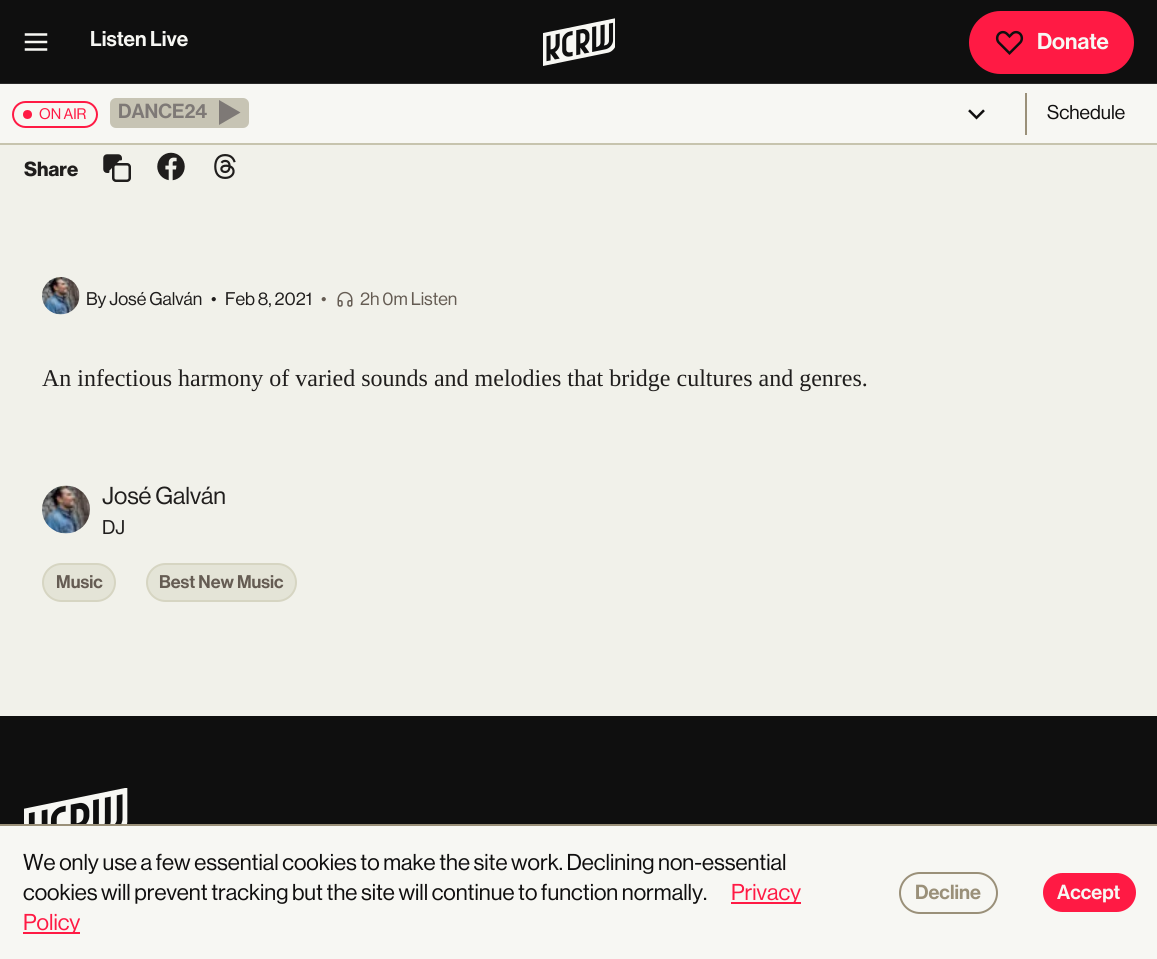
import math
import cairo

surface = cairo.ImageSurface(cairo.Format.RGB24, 1157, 959)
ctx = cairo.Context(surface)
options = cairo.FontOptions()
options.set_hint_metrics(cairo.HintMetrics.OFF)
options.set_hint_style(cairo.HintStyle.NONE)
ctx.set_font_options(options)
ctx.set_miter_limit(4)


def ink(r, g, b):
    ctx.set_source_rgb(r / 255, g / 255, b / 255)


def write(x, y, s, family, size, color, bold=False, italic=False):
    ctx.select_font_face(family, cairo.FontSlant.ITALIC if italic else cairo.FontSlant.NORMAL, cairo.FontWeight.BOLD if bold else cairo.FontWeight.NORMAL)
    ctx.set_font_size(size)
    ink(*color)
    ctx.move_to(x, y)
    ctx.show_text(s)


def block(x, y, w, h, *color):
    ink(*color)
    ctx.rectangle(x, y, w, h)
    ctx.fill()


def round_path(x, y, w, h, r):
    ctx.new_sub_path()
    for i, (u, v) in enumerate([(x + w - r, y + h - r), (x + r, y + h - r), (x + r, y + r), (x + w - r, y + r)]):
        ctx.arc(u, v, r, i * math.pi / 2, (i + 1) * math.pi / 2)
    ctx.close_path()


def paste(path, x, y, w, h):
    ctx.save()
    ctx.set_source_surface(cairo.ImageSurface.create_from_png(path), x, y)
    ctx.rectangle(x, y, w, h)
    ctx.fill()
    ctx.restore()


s1 = dict(family="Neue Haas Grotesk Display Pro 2 Medium", size=21, color=(247, 247, 243))
s2 = dict(family="Neue Haas Grotesk Display Pro 2 Medium", size=22.5, color=(247, 247, 243))
s3 = dict(family="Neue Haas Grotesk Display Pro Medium", size=15, color=(255, 26, 68))
s4 = dict(family="Neue Haas Grotesk Display Pro 2 Medium", size=20, color=(126, 121, 118))
s5 = dict(family="Neue Haas Grotesk Display Pro Medium", size=19.5, color=(16, 15, 15))
s6 = dict(family="Neue Haas Grotesk Display Pro", size=20, color=(32, 30, 29), bold=True)
s7 = dict(family="Neue Haas Grotesk Display Pro Medium", size=18, color=(32, 30, 29))
s8 = dict(family="Neue Haas Grotesk Display Pro Medium", size=18, color=(101, 92, 83))
s9 = dict(family="Liberation Serif", size=24, color=(32, 30, 29))
s10 = dict(family="Neue Haas Grotesk Display Pro Medium", size=24, color=(32, 30, 29))
s11 = dict(family="Neue Haas Grotesk Display Pro Medium", size=19.5, color=(32, 30, 29))
s12 = dict(family="Neue Haas Grotesk Display Pro 2 Medium", size=18, color=(101, 92, 83))
s13 = dict(family="Neue Haas Grotesk Display Pro Medium", size=22.5, color=(16, 15, 15))
s14 = dict(family="Neue Haas Grotesk Display Pro Medium", size=22.5, color=(255, 26, 68))
s15 = dict(family="Neue Haas Grotesk Display Pro 2 Medium", size=20, color=(154, 144, 121))
s16 = dict(family="Neue Haas Grotesk Display Pro 2 Medium", size=20, color=(247, 247, 243))

ink(241, 241, 234)
ctx.paint()
block(0, 0, 1157, 84, 15, 15, 15)
ctx.set_source_rgba(0.969, 0.969, 0.953, 0.12)
ctx.rectangle(0, 83, 1157, 1)
ctx.fill()
paste("pic1.png", 24, 33, 24, 18)
write(90, 46, "Listen Live", **s1)
paste("pic2.png", 543, 18, 72, 48)
ink(255, 26, 68)
round_path(970, 12, 163, 61, 30.5)
ctx.fill_preserve()
ctx.stroke()
paste("pic3.png", 995, 30, 29, 25)
write(1037, 49, "Donate", **s2)
block(0, 84, 1157, 59, 247, 247, 243)
block(0, 143, 1157, 2, 199, 196, 174)
round_path(13, 102, 84, 25, 12.5)
ink(255, 26, 68)
ctx.stroke()
ctx.arc(27.5, 114.5, 4.5, 0, 2 * math.pi)
ctx.fill()
write(39, 119, "ON AIR", **s3)
ink(199, 196, 180)
round_path(110, 98, 139, 30, 6)
ctx.fill()
write(118, 118, "DANCE24", **s4)
ctx.new_path()
ctx.move_to(219, 100)
ctx.line_to(219, 125)
ctx.line_to(240.5, 112.5)
ctx.close_path()
ctx.fill()
paste("pic4.png", 968, 109, 17, 11)
block(1025, 93, 2, 42, 154, 144, 121)
write(1047, 119, "Schedule", **s5)
write(24, 176, "Share", **s6)
paste("pic5.png", 103, 154, 28, 28)
paste("pic6.png", 157, 152, 28, 29)
paste("pic7.png", 214, 154, 22, 25)
paste("pic8.png", 42, 277, 38, 38)
write(86, 305, "By José Galván", **s7)
write(211, 305, "•", **s7)
write(225, 305, "Feb 8, 2021", **s7)
write(321, 305, "•", **s8)
paste("pic9.png", 337, 291, 16, 16)
write(360, 305, "2h 0m Listen", **s8)
write(42, 386, "An infectious harmony of varied sounds and melodies that bridge cultures and genres.", **s9)
paste("pic10.png", 42, 485, 48, 49)
write(102, 504, "José Galván", **s10)
write(102, 534, "DJ", **s11)
ink(228, 228, 215)
round_path(43, 564, 72, 37, 18.5)
ctx.fill_preserve()
ink(214, 213, 194)
ctx.stroke()
write(56, 588, "Music", **s12)
ink(228, 228, 215)
round_path(147, 564, 149, 37, 18.5)
ctx.fill_preserve()
ink(214, 213, 194)
ctx.stroke()
write(159, 588, "Best New Music", **s12)
block(0, 716, 1157, 108, 15, 15, 15)
paste("pic11.png", 24, 788, 104, 36)
block(0, 826, 1157, 133, 247, 247, 243)
block(0, 824, 1157, 2, 154, 144, 121)
write(23, 870, "We only use a few essential cookies to make the site work. Declining non-essential", **s13)
write(23, 900, "cookies will prevent tracking but the site will continue to function normally.", **s13)
block(731, 902, 70, 2, 255, 26, 68)
write(731, 900, "Privacy", **s14)
block(23, 932, 57, 2, 255, 26, 68)
write(23, 930, "Policy", **s14)
round_path(900, 873, 97, 40, 20)
ink(154, 144, 121)
ctx.stroke()
write(915, 899, "Decline", **s15)
ink(255, 26, 68)
round_path(1043, 873, 93, 39, 19.5)
ctx.fill()
write(1057, 899, "Accept", **s16)
surface.write_to_png("screenshot.png")
